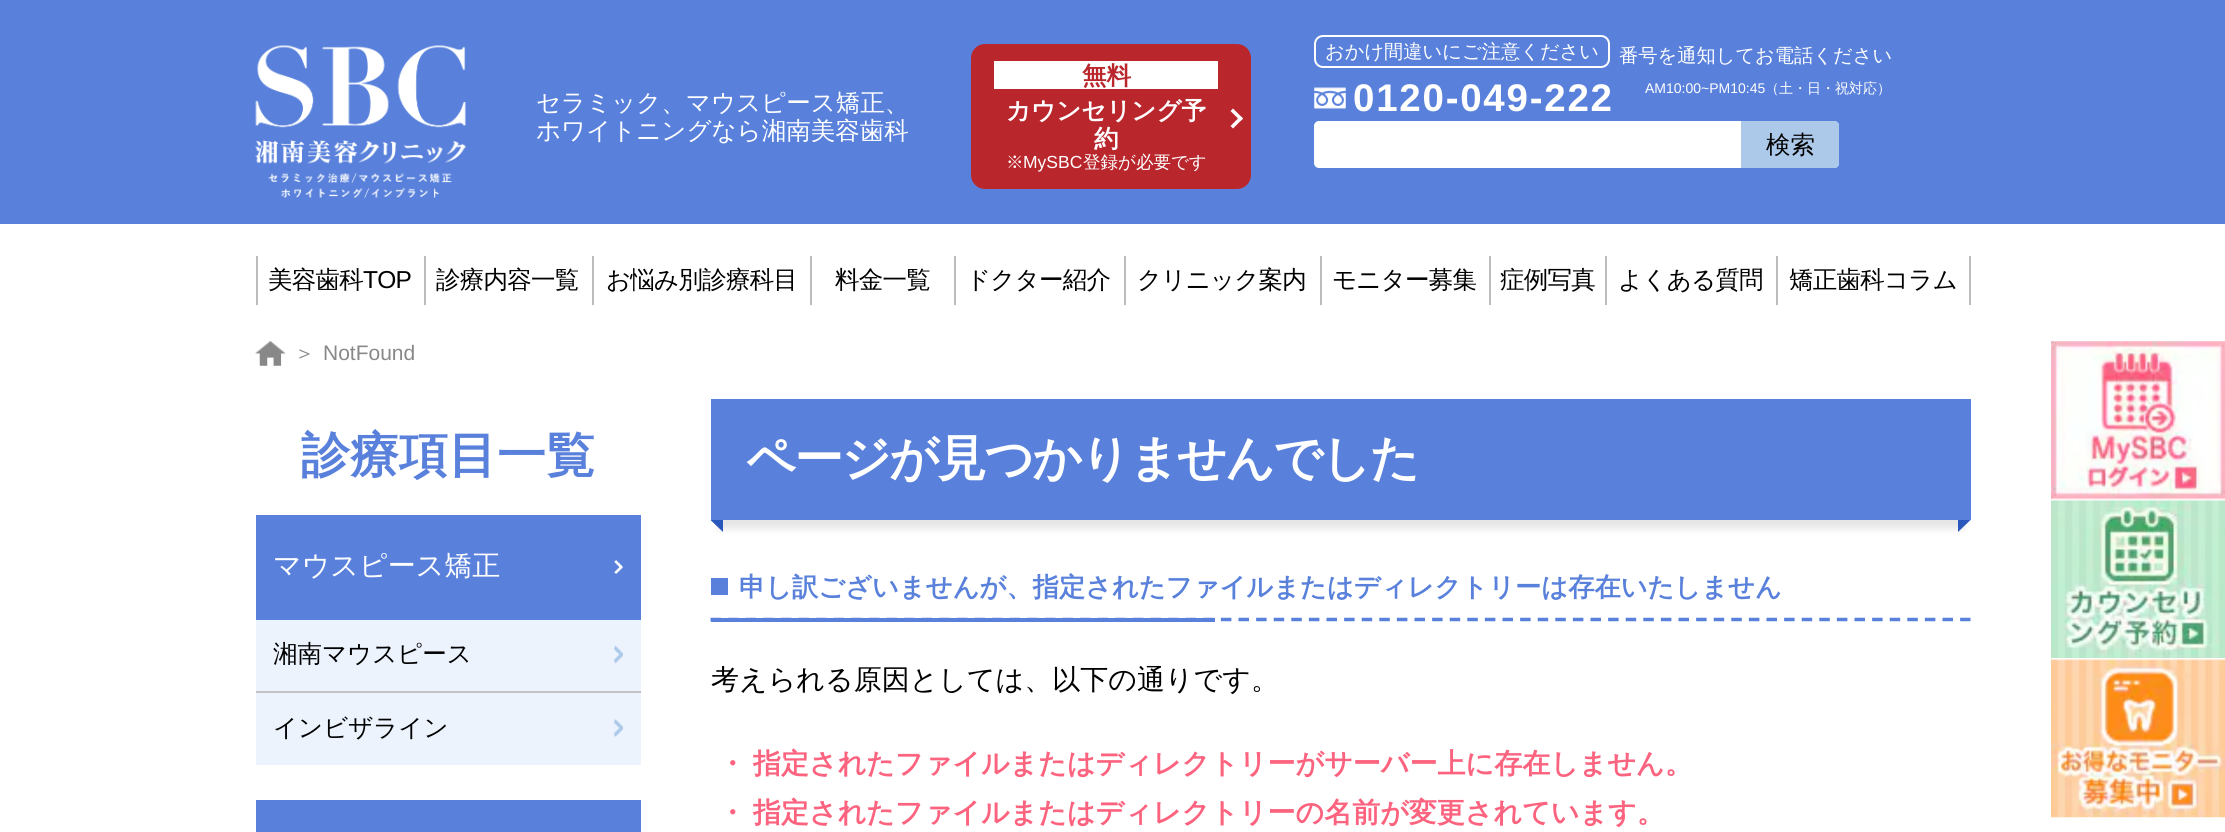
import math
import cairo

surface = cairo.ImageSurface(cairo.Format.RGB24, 2225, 832)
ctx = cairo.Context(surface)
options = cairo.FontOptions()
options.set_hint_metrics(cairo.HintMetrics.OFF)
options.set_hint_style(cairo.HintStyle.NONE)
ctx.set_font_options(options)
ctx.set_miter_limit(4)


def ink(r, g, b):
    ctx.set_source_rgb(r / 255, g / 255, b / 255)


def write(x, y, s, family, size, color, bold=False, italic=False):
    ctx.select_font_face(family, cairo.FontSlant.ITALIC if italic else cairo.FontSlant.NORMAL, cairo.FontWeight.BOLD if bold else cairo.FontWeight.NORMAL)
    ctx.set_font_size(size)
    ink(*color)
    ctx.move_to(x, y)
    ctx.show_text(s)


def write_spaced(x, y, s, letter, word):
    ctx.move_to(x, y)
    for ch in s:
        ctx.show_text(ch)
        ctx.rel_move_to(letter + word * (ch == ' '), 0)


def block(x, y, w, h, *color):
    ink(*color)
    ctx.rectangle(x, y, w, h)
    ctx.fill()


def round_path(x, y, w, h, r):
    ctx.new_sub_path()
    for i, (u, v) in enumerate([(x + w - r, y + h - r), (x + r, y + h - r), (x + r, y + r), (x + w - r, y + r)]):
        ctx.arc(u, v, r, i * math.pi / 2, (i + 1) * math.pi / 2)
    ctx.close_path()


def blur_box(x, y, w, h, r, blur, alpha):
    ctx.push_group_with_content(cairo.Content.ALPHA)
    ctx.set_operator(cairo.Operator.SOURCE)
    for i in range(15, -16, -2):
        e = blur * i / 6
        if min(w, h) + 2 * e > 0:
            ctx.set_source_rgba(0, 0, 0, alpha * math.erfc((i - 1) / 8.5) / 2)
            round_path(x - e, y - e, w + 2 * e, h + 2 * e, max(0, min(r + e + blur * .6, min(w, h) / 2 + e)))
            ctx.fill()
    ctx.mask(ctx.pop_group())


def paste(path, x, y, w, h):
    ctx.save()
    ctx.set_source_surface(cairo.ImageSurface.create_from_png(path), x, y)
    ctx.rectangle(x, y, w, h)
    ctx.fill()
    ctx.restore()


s1 = dict(family="WenQuanYi Zen Hei Medium", size=24.5, color=(255, 255, 255))
s2 = dict(family="WenQuanYi Zen Hei", size=24.5, color=(185, 39, 45), bold=True)
s3 = dict(family="WenQuanYi Zen Hei", size=24.5, color=(255, 255, 255), bold=True)
s4 = dict(family="WenQuanYi Zen Hei Medium", size=17.5, color=(255, 255, 255))
s5 = dict(family="Liberation Sans", size=17.5, color=(255, 255, 255))
s6 = dict(family="WenQuanYi Zen Hei Medium", size=19.25, color=(255, 255, 255))
s7 = dict(family="Liberation Sans", size=14, color=(255, 255, 255))
s8 = dict(family="WenQuanYi Zen Hei Medium", size=14, color=(255, 255, 255))
s9 = dict(family="WenQuanYi Zen Hei Medium", size=24.5, color=(0, 0, 0))
s10 = dict(family="WenQuanYi Zen Hei Medium", size=21, color=(136, 136, 136))
s11 = dict(family="Liberation Sans", size=21, color=(136, 136, 136))
s12 = dict(family="WenQuanYi Zen Hei", size=49, color=(89, 129, 219), bold=True)
s13 = dict(family="WenQuanYi Zen Hei Medium", size=28, color=(255, 255, 255))
s14 = dict(family="WenQuanYi Zen Hei", size=26.25, color=(89, 129, 219), bold=True)
s15 = dict(family="WenQuanYi Zen Hei Medium", size=28, color=(0, 0, 0))
s16 = dict(family="WenQuanYi Zen Hei", size=28, color=(252, 99, 127), bold=True)

ink(255, 255, 255)
ctx.paint()
block(0, 0, 2225, 224, 89, 129, 219)
paste("pic1.png", 255, 45, 211, 153)
write(536, 111, "セラミック、マウスピース矯正、", **s1)
write(536, 139, "ホワイトニングなら湘南美容歯科", **s1)
ink(185, 39, 45)
round_path(971, 44, 280, 145, 14)
ctx.fill()
block(994, 61, 224, 28, 255, 255, 255)
write(1082, 84, "無料", **s2)
write(1006, 119, "カウンセリング予", **s3)
write(1094, 147, "約", **s3)
ctx.new_path()
ctx.move_to(1233, 108.5)
ctx.line_to(1243, 118.5)
ctx.line_to(1240.5, 121)
ctx.line_to(1230.5, 111)
ctx.close_path()
ctx.fill()
ctx.new_path()
ctx.move_to(1240.5, 116)
ctx.line_to(1243, 118.5)
ctx.line_to(1233, 128.5)
ctx.line_to(1230.5, 126)
ctx.close_path()
ctx.fill()
write(1006, 168, "※", **s4)
write(1023, 168, "MySBC", **s5)
write(1083, 168, "登録が必要です", **s4)
round_path(1315, 36, 294, 31, 8)
ctx.stroke()
write(1325, 58, "おかけ間違いにご注意ください", **s6)
write(1619, 62, "番号を通知してお電話ください", **s6)
paste("pic2.png", 1314, 87, 32, 22)
ctx.select_font_face("Liberation Sans", cairo.FontSlant.NORMAL, cairo.FontWeight.BOLD)
ctx.set_font_size(38.5)
write_spaced(1353, 111, "0120-049-222", 1.75, 0)
write(1645, 93, "AM10:00~PM10:45", **s7)
write(1765, 93, "（土・日・祝対応）", **s8)
round_path(1314, 121, 525, 47, 5)
ctx.fill()
ink(173, 201, 233)
ctx.new_path()
ctx.move_to(1741, 121)
ctx.line_to(1834, 121)
ctx.curve_to(1837, 121, 1839, 123, 1839, 126)
ctx.line_to(1839, 163)
ctx.curve_to(1839, 166, 1837, 168, 1834, 168)
ctx.line_to(1741, 168)
ctx.close_path()
ctx.fill()
write(1766, 153, "検索", **s9)
block(256, 256, 2, 49, 188, 188, 188)
ink(0, 0, 0)
write_spaced(268, 288, "美容歯科", -0.75, 0)
ctx.select_font_face("Liberation Sans")
write_spaced(363, 288, "TOP", -0.75, 0)
block(424, 256, 2, 49, 188, 188, 188)
ctx.select_font_face("WenQuanYi Zen Hei Medium")
ink(0, 0, 0)
write_spaced(436, 288, "診療内容一覧", -0.75, 0)
block(592, 256, 2, 49, 188, 188, 188)
ink(0, 0, 0)
write_spaced(606, 288, "お悩み別診療科目", -0.75, 0)
block(810, 256, 2, 49, 188, 188, 188)
ink(0, 0, 0)
write_spaced(835, 288, "料金一覧", -0.75, 0)
block(954, 256, 2, 49, 188, 188, 188)
ink(0, 0, 0)
write_spaced(966, 288, "ドクター紹介", -0.75, 0)
block(1124, 256, 2, 49, 188, 188, 188)
ink(0, 0, 0)
write_spaced(1137, 288, "クリニック案内", -0.75, 0)
block(1320, 256, 2, 49, 188, 188, 188)
ink(0, 0, 0)
write_spaced(1332, 288, "モニター募集", -0.75, 0)
block(1489, 256, 2, 49, 188, 188, 188)
ink(0, 0, 0)
write_spaced(1500, 288, "症例写真", -0.75, 0)
block(1605, 256, 2, 49, 188, 188, 188)
ink(0, 0, 0)
write_spaced(1618, 288, "よくある質問", -0.75, 0)
block(1776, 256, 2, 49, 188, 188, 188)
ink(0, 0, 0)
write_spaced(1789, 288, "矯正歯科コラム", -0.75, 0)
block(1969, 256, 2, 49, 188, 188, 188)
paste("pic3.png", 255, 341, 31, 25)
write(294, 360, "＞", **s10)
write(323, 360, "NotFound", **s11)
paste("pic4.png", 2051, 341, 174, 159)
paste("pic5.png", 2051, 500, 174, 158)
paste("pic6.png", 2051, 659, 174, 159)
write(301, 472, "診療項目一覧", **s12)
block(256, 515, 385, 105, 89, 129, 219)
write(273, 575, "マウスピース矯正", **s13)
paste("pic7.png", 614, 560, 9, 14)
block(256, 620, 385, 71, 236, 243, 253)
write(273, 662, "湘南マウスピース", **s9)
paste("pic8.png", 614, 645, 9, 19)
block(256, 691, 385, 2, 194, 194, 194)
block(256, 693, 385, 72, 236, 243, 253)
write(273, 736, "インビザライン", **s9)
paste("pic9.png", 614, 719, 9, 18)
block(256, 800, 385, 32, 89, 129, 219)
ink(0, 0, 0)
blur_box(718, 422, 1246, 107, 0, 3.5, 0.1)
block(711, 399, 1260, 121, 89, 129, 219)
ctx.select_font_face("WenQuanYi Zen Hei", cairo.FontSlant.NORMAL, cairo.FontWeight.BOLD)
ctx.set_font_size(49)
ink(255, 255, 255)
write_spaced(746, 475, "ページが見つかりませんでした", -2, 0)
ink(42, 87, 188)
ctx.new_path()
ctx.move_to(723, 520)
ctx.line_to(723, 532)
ctx.line_to(710.5, 520)
ctx.close_path()
ctx.fill()
ctx.new_path()
ctx.move_to(1958, 532)
ctx.line_to(1958, 520)
ctx.line_to(1970.5, 520)
ctx.close_path()
ctx.fill()
ctx.new_path()
ctx.move_to(710.5, 619.5)
ctx.line_to(1970.5, 619.5)
ink(89, 129, 219)
ctx.set_line_width(3.5)
ctx.set_dash([10.5, 7.1])
ctx.stroke()
block(711, 578, 17, 17, 89, 129, 219)
write(739, 596, "申し訳ございませんが、指定されたファイルまたはディレクトリーは存在いたしません", **s14)
block(711, 618, 504, 4, 89, 129, 219)
write(711, 689, "考えられる原因としては、以下の通りです。", **s15)
write(718, 773, "・", **s16)
write(753, 773, "指定されたファイルまたはディレクトリーがサーバー上に存在しません。", **s16)
write(718, 822, "・", **s16)
write(753, 822, "指定されたファイルまたはディレクトリーの名前が変更されています。", **s16)
surface.write_to_png("screenshot.png")
